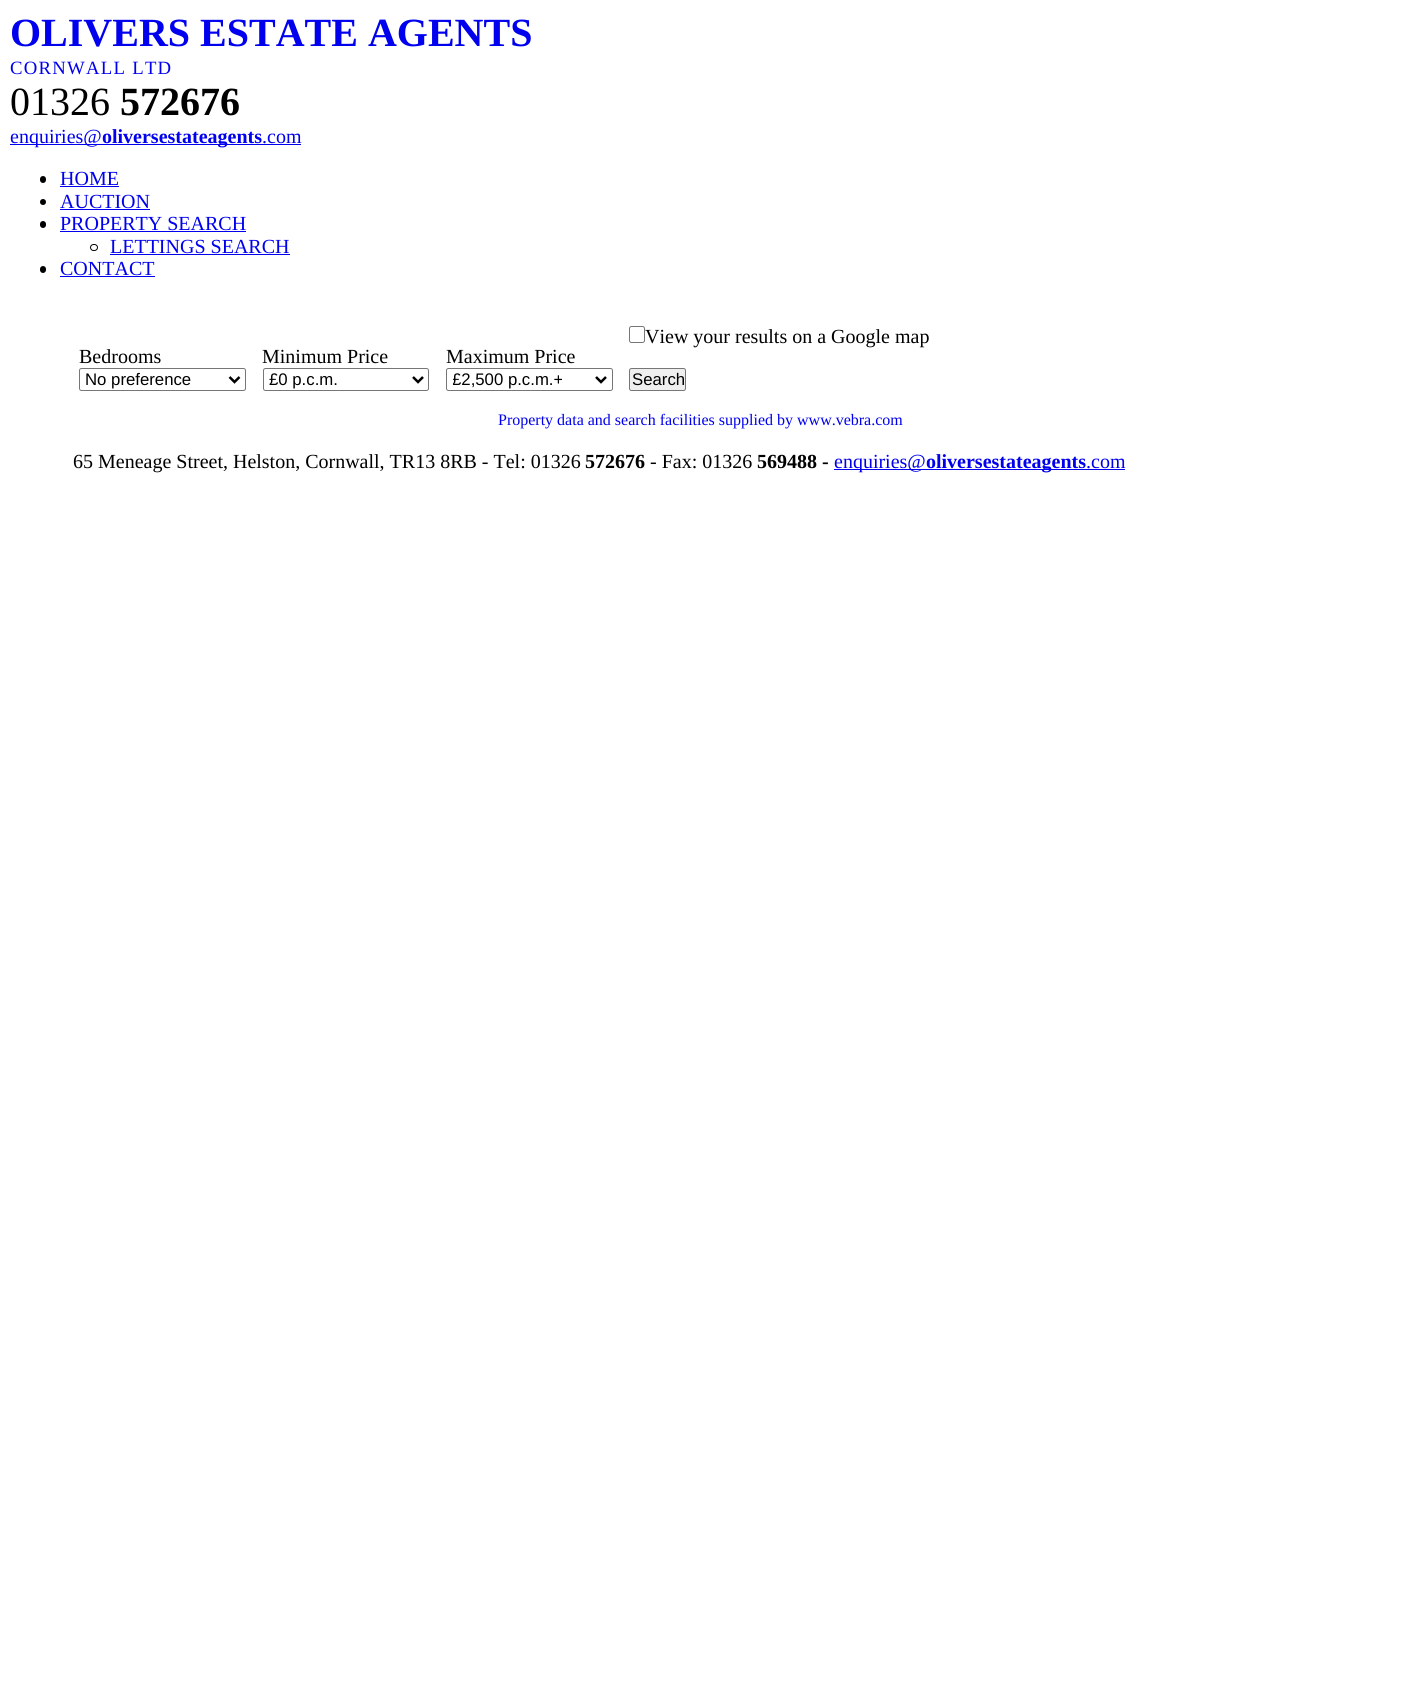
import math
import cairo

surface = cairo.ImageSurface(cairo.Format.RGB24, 1401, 1683)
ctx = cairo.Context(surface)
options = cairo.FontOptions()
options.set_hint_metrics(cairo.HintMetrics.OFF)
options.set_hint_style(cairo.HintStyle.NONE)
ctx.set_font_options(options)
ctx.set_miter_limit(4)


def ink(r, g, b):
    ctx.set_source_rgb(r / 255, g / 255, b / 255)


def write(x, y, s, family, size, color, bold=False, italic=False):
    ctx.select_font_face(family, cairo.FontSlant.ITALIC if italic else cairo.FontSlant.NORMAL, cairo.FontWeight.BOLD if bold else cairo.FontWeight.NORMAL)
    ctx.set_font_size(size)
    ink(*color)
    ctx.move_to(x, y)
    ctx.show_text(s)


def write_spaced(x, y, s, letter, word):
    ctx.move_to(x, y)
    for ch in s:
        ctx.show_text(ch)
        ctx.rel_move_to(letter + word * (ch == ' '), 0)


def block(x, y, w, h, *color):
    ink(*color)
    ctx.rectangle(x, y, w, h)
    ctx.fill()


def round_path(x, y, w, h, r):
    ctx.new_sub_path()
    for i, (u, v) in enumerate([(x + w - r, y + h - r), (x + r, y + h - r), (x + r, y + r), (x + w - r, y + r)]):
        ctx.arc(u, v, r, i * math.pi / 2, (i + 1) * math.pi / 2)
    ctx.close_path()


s1 = dict(family="Liberation Serif", size=40, color=(0, 0, 238), bold=True)
s2 = dict(family="Liberation Serif", size=40, color=(0, 0, 0))
s3 = dict(family="Liberation Serif", size=40, color=(0, 0, 0), bold=True)
s4 = dict(family="Liberation Serif", size=20, color=(0, 0, 238))
s5 = dict(family="Liberation Serif", size=20, color=(0, 0, 238), bold=True)
s6 = dict(family="Liberation Serif", size=20, color=(0, 0, 0))
s7 = dict(family="Liberation Sans", size=16.75, color=(0, 0, 0))
s8 = dict(family="Liberation Serif", size=16, color=(0, 0, 238))
s9 = dict(family="Liberation Serif", size=20, color=(0, 0, 0), bold=True)

ink(255, 255, 255)
ctx.paint()
write(10, 46, "OLIVERS ESTATE AGENTS", **s1)
ctx.select_font_face("Liberation Serif")
ctx.set_font_size(18.75)
write_spaced(10, 74, "CORNWALL LTD", 1.25, 0)
write(10, 115, "01326", **s2)
write(120, 115, "572676", **s3)
block(10, 144, 251, 1, 0, 0, 238)
write(10, 143, "enquiries@", **s4)
write(102, 143, "oliversestateagents", **s5)
block(261, 144, 40, 1, 0, 0, 238)
write(262, 143, ".com", **s4)
ink(0, 0, 0)
round_path(40, 176, 6, 7, 3)
ctx.fill()
write(60, 185, "HOME", **s4)
block(60, 186, 59, 1, 0, 0, 238)
ink(0, 0, 0)
ctx.new_path()
ctx.arc(43, 202, 3, 0, 2 * math.pi)
ctx.fill()
write(60, 208, "AUCTION", **s4)
block(60, 209, 90, 1, 0, 0, 238)
ink(0, 0, 0)
round_path(40, 221, 6, 7, 3)
ctx.fill()
write(60, 230, "PROPERTY SEARCH", **s4)
block(60, 231, 186, 1, 0, 0, 238)
round_path(90.5, 244.5, 7, 6, 3)
ink(0, 0, 0)
ctx.set_line_width(1)
ctx.stroke()
write(110, 253, "LETTINGS SEARCH", **s4)
block(110, 254, 180, 1, 0, 0, 238)
ink(0, 0, 0)
round_path(40, 266, 6, 7, 3)
ctx.fill()
write(60, 275, "CONTACT", **s4)
block(60, 276, 95, 1, 0, 0, 238)
round_path(629.5, 326.5, 15, 16, 2)
ink(118, 118, 118)
ctx.stroke()
write(645, 343, "View your results on a Google map", **s6)
write(79, 363, "Bedrooms", **s6)
round_path(79.5, 368.5, 166, 22, 2)
ink(118, 118, 118)
ctx.stroke()
ctx.new_path()
ctx.move_to(229.5, 377)
ctx.line_to(234.5, 382)
ctx.line_to(239.5, 377)
ink(0, 0, 0)
ctx.set_line_width(2.5)
ctx.stroke()
write(85, 385, "No preference", **s7)
write(262, 363, "Minimum Price", **s6)
round_path(263.5, 368.5, 165, 22, 2)
ink(118, 118, 118)
ctx.set_line_width(1)
ctx.stroke()
ctx.new_path()
ctx.move_to(413, 377)
ctx.line_to(418, 382)
ctx.line_to(423, 377)
ink(0, 0, 0)
ctx.set_line_width(2.5)
ctx.stroke()
write(269, 385, "£0 p.c.m.", **s7)
write(446, 363, "Maximum Price", **s6)
round_path(446.5, 368.5, 166, 22, 2)
ink(118, 118, 118)
ctx.set_line_width(1)
ctx.stroke()
ctx.new_path()
ctx.move_to(596, 377)
ctx.line_to(601, 382)
ctx.line_to(606, 377)
ink(0, 0, 0)
ctx.set_line_width(2.5)
ctx.stroke()
ctx.save()
ctx.rectangle(453, 369, 138, 21)
ctx.clip()
write(452, 385, "£2,500 p.c.m.+", **s7)
ctx.restore()
ink(239, 239, 239)
round_path(629.5, 368.5, 56, 22, 2)
ctx.fill_preserve()
ink(118, 118, 118)
ctx.set_line_width(1)
ctx.stroke()
write(632, 385, "Search", **s7)
write(498, 425, "Property data and search facilities supplied by www.vebra.com", **s8)
write(73, 468, "65 Meneage Street, Helston, Cornwall, TR13 8RB - Tel: 01326", **s6)
write(585, 468, "572676", **s9)
write(650, 468, "- Fax: 01326", **s6)
write(757, 468, "569488 -", **s9)
block(834, 469, 291, 1, 0, 0, 238)
write(834, 468, "enquiries@", **s4)
write(926, 468, "oliversestateagents", **s5)
write(1086, 468, ".com", **s4)
surface.write_to_png("screenshot.png")
